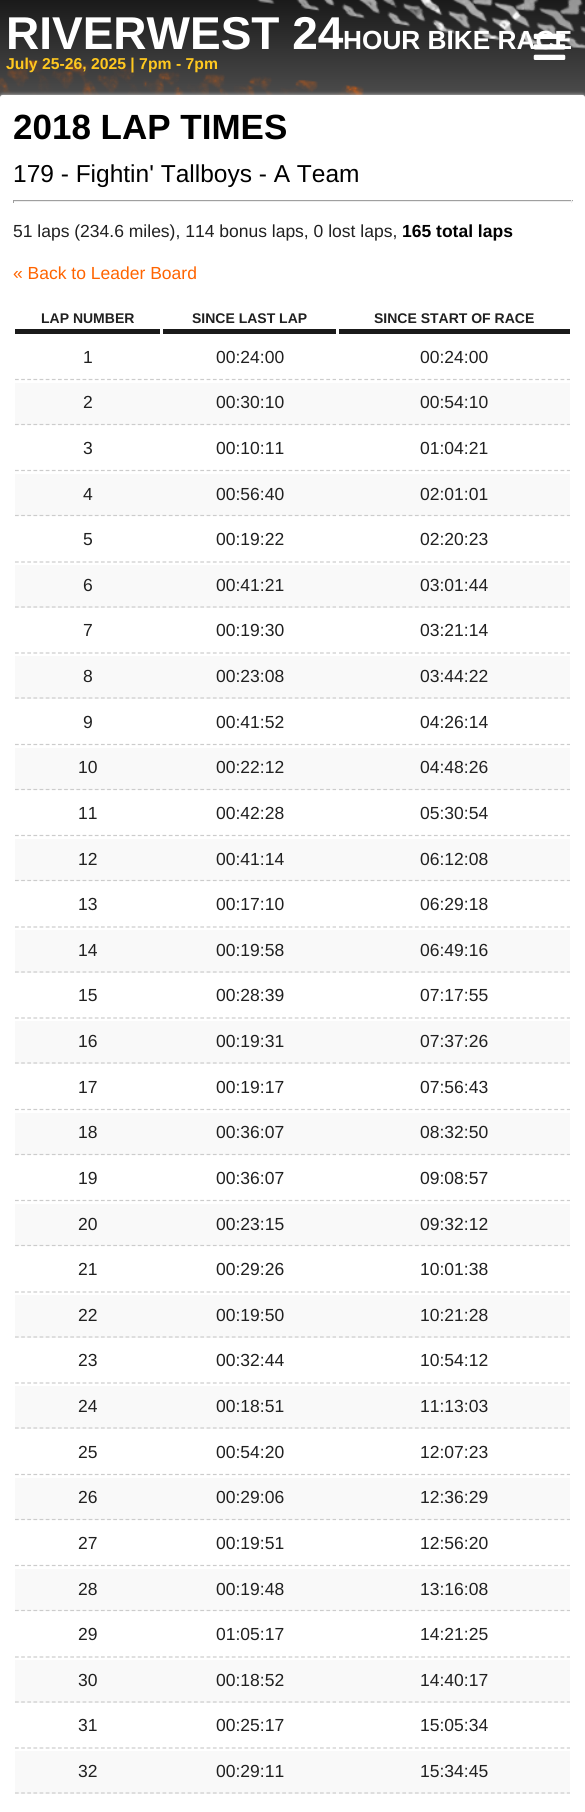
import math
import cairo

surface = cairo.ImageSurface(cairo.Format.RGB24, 585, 1812)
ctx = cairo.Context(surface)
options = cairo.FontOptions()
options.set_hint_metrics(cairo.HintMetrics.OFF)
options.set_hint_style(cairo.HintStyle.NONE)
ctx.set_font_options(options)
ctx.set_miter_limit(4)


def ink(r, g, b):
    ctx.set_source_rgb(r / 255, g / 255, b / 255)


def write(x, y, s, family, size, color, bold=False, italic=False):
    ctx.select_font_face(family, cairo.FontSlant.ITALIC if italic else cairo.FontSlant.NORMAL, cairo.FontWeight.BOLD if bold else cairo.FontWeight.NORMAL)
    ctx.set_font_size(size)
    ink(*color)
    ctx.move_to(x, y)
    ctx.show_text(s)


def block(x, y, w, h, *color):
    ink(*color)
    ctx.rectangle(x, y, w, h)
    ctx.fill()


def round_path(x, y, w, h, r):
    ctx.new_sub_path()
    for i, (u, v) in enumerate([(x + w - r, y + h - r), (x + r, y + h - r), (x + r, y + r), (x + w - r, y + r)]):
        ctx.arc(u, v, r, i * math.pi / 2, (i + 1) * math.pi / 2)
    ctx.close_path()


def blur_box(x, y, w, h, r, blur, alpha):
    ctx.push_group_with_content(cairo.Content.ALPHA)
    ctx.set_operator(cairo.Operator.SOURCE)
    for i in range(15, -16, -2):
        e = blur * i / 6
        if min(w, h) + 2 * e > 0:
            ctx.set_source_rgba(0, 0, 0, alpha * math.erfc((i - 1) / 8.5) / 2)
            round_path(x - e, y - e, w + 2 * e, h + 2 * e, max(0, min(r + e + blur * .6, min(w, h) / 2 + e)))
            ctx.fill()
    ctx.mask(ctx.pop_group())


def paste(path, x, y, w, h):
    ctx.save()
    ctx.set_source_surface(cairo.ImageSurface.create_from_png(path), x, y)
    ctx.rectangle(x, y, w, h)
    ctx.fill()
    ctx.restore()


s1 = dict(family="Liberation Sans", size=46, color=(255, 255, 255), bold=True)
s2 = dict(family="Liberation Sans", size=26.25, color=(255, 255, 255), bold=True)
s3 = dict(family="Liberation Sans", size=15.75, color=(255, 200, 31), bold=True)
s4 = dict(family="Liberation Sans", size=35, color=(0, 0, 0), bold=True)
s5 = dict(family="Liberation Sans", size=24.5, color=(0, 0, 0))
s6 = dict(family="Liberation Sans", size=17.5, color=(32, 32, 32))
s7 = dict(family="Liberation Sans", size=17.5, color=(0, 0, 0), bold=True)
s8 = dict(family="Liberation Sans", size=17.5, color=(255, 100, 0))
s9 = dict(family="Liberation Sans", size=14, color=(32, 32, 32), bold=True)

ink(255, 255, 255)
ctx.paint()
gradient = cairo.LinearGradient(292, 0, 293, 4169)
gradient.add_color_stop_rgba(0, 0.102, 0.102, 0.102, 1)
gradient.add_color_stop_rgba(0.1, 0.945, 0.945, 0.945, 1)
ctx.set_source(gradient)
ctx.rectangle(0, 0, 585, 98)
ctx.fill()
paste("pic1.png", 0, 0, 585, 95)
write(6, 49, "RIVERWEST 24", **s1)
write(343, 49, "HOUR BIKE RACE", **s2)
write(6, 69, "July 25-26, 2025 | 7pm - 7pm", **s3)
paste("pic2.png", 533, 33, 33, 27)
ink(204, 204, 204)
blur_box(0, 95, 585, 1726, 2.5, 2, 1)
ink(255, 255, 255)
round_path(0, 95, 585, 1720, 2.5)
ctx.fill()
write(13, 139, "2018 LAP TIMES", **s4)
write(13, 182, "179 - Fightin' Tallboys - A Team", **s5)
block(13, 200, 560, 1, 159, 159, 159)
block(571, 200, 1, 3, 238, 238, 238)
block(13, 201, 560, 1, 238, 238, 238)
block(13, 200, 1, 3, 159, 159, 159)
write(13, 237, "51 laps (234.6 miles), 114 bonus laps, 0 lost laps,", **s6)
write(402, 237, "165 total laps", **s7)
write(13, 279, "« Back to Leader Board", **s8)
block(15, 329, 145, 5, 26, 26, 26)
write(41, 323, "LAP NUMBER", **s9)
block(163, 329, 173, 5, 26, 26, 26)
write(192, 323, "SINCE LAST LAP", **s9)
block(339, 329, 231, 5, 26, 26, 26)
write(374, 323, "SINCE START OF RACE", **s9)
ctx.new_path()
ctx.move_to(15, 379.5)
ctx.line_to(160, 379.5)
ink(204, 204, 204)
ctx.set_line_width(1.2)
ctx.set_dash([3.75, 2.39])
ctx.stroke()
write(83, 363, "1", **s6)
ctx.new_path()
ctx.move_to(162.5, 379.5)
ctx.line_to(336, 379.5)
ink(204, 204, 204)
ctx.set_dash([3.75, 2.55])
ctx.stroke()
write(216, 363, "00:24:00", **s6)
ctx.new_path()
ctx.move_to(339, 379.5)
ctx.line_to(570, 379.5)
ink(204, 204, 204)
ctx.set_dash([3.75, 2.58])
ctx.stroke()
write(420, 363, "00:24:00", **s6)
block(15, 383, 555, 42, 249, 249, 249)
ctx.new_path()
ctx.move_to(15, 424.5)
ctx.line_to(160, 424.5)
ink(204, 204, 204)
ctx.set_dash([3.75, 2.39])
ctx.stroke()
write(83, 408, "2", **s6)
ctx.new_path()
ctx.move_to(162.5, 424.5)
ctx.line_to(336, 424.5)
ink(204, 204, 204)
ctx.set_dash([3.75, 2.55])
ctx.stroke()
write(216, 408, "00:30:10", **s6)
ctx.new_path()
ctx.move_to(339, 424.5)
ctx.line_to(570, 424.5)
ink(204, 204, 204)
ctx.set_dash([3.75, 2.58])
ctx.stroke()
write(420, 408, "00:54:10", **s6)
ctx.new_path()
ctx.move_to(15, 470.5)
ctx.line_to(160, 470.5)
ink(204, 204, 204)
ctx.set_dash([3.75, 2.39])
ctx.stroke()
write(83, 454, "3", **s6)
ctx.new_path()
ctx.move_to(162.5, 470.5)
ctx.line_to(336, 470.5)
ink(204, 204, 204)
ctx.set_dash([3.75, 2.55])
ctx.stroke()
write(216, 454, "00:10:11", **s6)
ctx.new_path()
ctx.move_to(339, 470.5)
ctx.line_to(570, 470.5)
ink(204, 204, 204)
ctx.set_dash([3.75, 2.58])
ctx.stroke()
write(420, 454, "01:04:21", **s6)
block(15, 474, 555, 42, 249, 249, 249)
ctx.new_path()
ctx.move_to(15, 515.5)
ctx.line_to(160, 515.5)
ink(204, 204, 204)
ctx.set_dash([3.75, 2.39])
ctx.stroke()
write(83, 500, "4", **s6)
ctx.new_path()
ctx.move_to(162.5, 515.5)
ctx.line_to(336, 515.5)
ink(204, 204, 204)
ctx.set_dash([3.75, 2.55])
ctx.stroke()
write(216, 500, "00:56:40", **s6)
ctx.new_path()
ctx.move_to(339, 515.5)
ctx.line_to(570, 515.5)
ink(204, 204, 204)
ctx.set_dash([3.75, 2.58])
ctx.stroke()
write(420, 500, "02:01:01", **s6)
ctx.new_path()
ctx.move_to(15, 562)
ctx.line_to(160, 562)
ink(204, 204, 204)
ctx.set_dash([3.75, 2.39])
ctx.stroke()
write(83, 545, "5", **s6)
ctx.new_path()
ctx.move_to(162.5, 562)
ctx.line_to(336, 562)
ink(204, 204, 204)
ctx.set_dash([3.75, 2.55])
ctx.stroke()
write(216, 545, "00:19:22", **s6)
ctx.new_path()
ctx.move_to(339, 562)
ctx.line_to(570, 562)
ink(204, 204, 204)
ctx.set_dash([3.75, 2.58])
ctx.stroke()
write(420, 545, "02:20:23", **s6)
block(15, 565, 555, 43, 249, 249, 249)
ctx.new_path()
ctx.move_to(15, 607)
ctx.line_to(160, 607)
ink(204, 204, 204)
ctx.set_dash([3.75, 2.39])
ctx.stroke()
write(83, 591, "6", **s6)
ctx.new_path()
ctx.move_to(162.5, 607)
ctx.line_to(336, 607)
ink(204, 204, 204)
ctx.set_dash([3.75, 2.55])
ctx.stroke()
write(216, 591, "00:41:21", **s6)
ctx.new_path()
ctx.move_to(339, 607)
ctx.line_to(570, 607)
ink(204, 204, 204)
ctx.set_dash([3.75, 2.58])
ctx.stroke()
write(420, 591, "03:01:44", **s6)
ctx.new_path()
ctx.move_to(15, 653)
ctx.line_to(160, 653)
ink(204, 204, 204)
ctx.set_dash([3.75, 2.39])
ctx.stroke()
write(83, 636, "7", **s6)
ctx.new_path()
ctx.move_to(162.5, 653)
ctx.line_to(336, 653)
ink(204, 204, 204)
ctx.set_dash([3.75, 2.55])
ctx.stroke()
write(216, 636, "00:19:30", **s6)
ctx.new_path()
ctx.move_to(339, 653)
ctx.line_to(570, 653)
ink(204, 204, 204)
ctx.set_dash([3.75, 2.58])
ctx.stroke()
write(420, 636, "03:21:14", **s6)
block(15, 656, 555, 43, 249, 249, 249)
ctx.new_path()
ctx.move_to(15, 698)
ctx.line_to(160, 698)
ink(204, 204, 204)
ctx.set_dash([3.75, 2.39])
ctx.stroke()
write(83, 682, "8", **s6)
ctx.new_path()
ctx.move_to(162.5, 698)
ctx.line_to(336, 698)
ink(204, 204, 204)
ctx.set_dash([3.75, 2.55])
ctx.stroke()
write(216, 682, "00:23:08", **s6)
ctx.new_path()
ctx.move_to(339, 698)
ctx.line_to(570, 698)
ink(204, 204, 204)
ctx.set_dash([3.75, 2.58])
ctx.stroke()
write(420, 682, "03:44:22", **s6)
ctx.new_path()
ctx.move_to(15, 744.5)
ctx.line_to(160, 744.5)
ink(204, 204, 204)
ctx.set_dash([3.75, 2.39])
ctx.stroke()
write(83, 728, "9", **s6)
ctx.new_path()
ctx.move_to(162.5, 744.5)
ctx.line_to(336, 744.5)
ink(204, 204, 204)
ctx.set_dash([3.75, 2.55])
ctx.stroke()
write(216, 728, "00:41:52", **s6)
ctx.new_path()
ctx.move_to(339, 744.5)
ctx.line_to(570, 744.5)
ink(204, 204, 204)
ctx.set_dash([3.75, 2.58])
ctx.stroke()
write(420, 728, "04:26:14", **s6)
block(15, 748, 555, 42, 249, 249, 249)
ctx.new_path()
ctx.move_to(15, 789.5)
ctx.line_to(160, 789.5)
ink(204, 204, 204)
ctx.set_dash([3.75, 2.39])
ctx.stroke()
write(78, 773, "10", **s6)
ctx.new_path()
ctx.move_to(162.5, 789.5)
ctx.line_to(336, 789.5)
ink(204, 204, 204)
ctx.set_dash([3.75, 2.55])
ctx.stroke()
write(216, 773, "00:22:12", **s6)
ctx.new_path()
ctx.move_to(339, 789.5)
ctx.line_to(570, 789.5)
ink(204, 204, 204)
ctx.set_dash([3.75, 2.58])
ctx.stroke()
write(420, 773, "04:48:26", **s6)
ctx.new_path()
ctx.move_to(15, 835.5)
ctx.line_to(160, 835.5)
ink(204, 204, 204)
ctx.set_dash([3.75, 2.39])
ctx.stroke()
write(78, 819, "11", **s6)
ctx.new_path()
ctx.move_to(162.5, 835.5)
ctx.line_to(336, 835.5)
ink(204, 204, 204)
ctx.set_dash([3.75, 2.55])
ctx.stroke()
write(216, 819, "00:42:28", **s6)
ctx.new_path()
ctx.move_to(339, 835.5)
ctx.line_to(570, 835.5)
ink(204, 204, 204)
ctx.set_dash([3.75, 2.58])
ctx.stroke()
write(420, 819, "05:30:54", **s6)
block(15, 839, 555, 42, 249, 249, 249)
ctx.new_path()
ctx.move_to(15, 880.5)
ctx.line_to(160, 880.5)
ink(204, 204, 204)
ctx.set_dash([3.75, 2.39])
ctx.stroke()
write(78, 865, "12", **s6)
ctx.new_path()
ctx.move_to(162.5, 880.5)
ctx.line_to(336, 880.5)
ink(204, 204, 204)
ctx.set_dash([3.75, 2.55])
ctx.stroke()
write(216, 865, "00:41:14", **s6)
ctx.new_path()
ctx.move_to(339, 880.5)
ctx.line_to(570, 880.5)
ink(204, 204, 204)
ctx.set_dash([3.75, 2.58])
ctx.stroke()
write(420, 865, "06:12:08", **s6)
ctx.new_path()
ctx.move_to(15, 927)
ctx.line_to(160, 927)
ink(204, 204, 204)
ctx.set_dash([3.75, 2.39])
ctx.stroke()
write(78, 910, "13", **s6)
ctx.new_path()
ctx.move_to(162.5, 927)
ctx.line_to(336, 927)
ink(204, 204, 204)
ctx.set_dash([3.75, 2.55])
ctx.stroke()
write(216, 910, "00:17:10", **s6)
ctx.new_path()
ctx.move_to(339, 927)
ctx.line_to(570, 927)
ink(204, 204, 204)
ctx.set_dash([3.75, 2.58])
ctx.stroke()
write(420, 910, "06:29:18", **s6)
block(15, 930, 555, 43, 249, 249, 249)
ctx.new_path()
ctx.move_to(15, 972)
ctx.line_to(160, 972)
ink(204, 204, 204)
ctx.set_dash([3.75, 2.39])
ctx.stroke()
write(78, 956, "14", **s6)
ctx.new_path()
ctx.move_to(162.5, 972)
ctx.line_to(336, 972)
ink(204, 204, 204)
ctx.set_dash([3.75, 2.55])
ctx.stroke()
write(216, 956, "00:19:58", **s6)
ctx.new_path()
ctx.move_to(339, 972)
ctx.line_to(570, 972)
ink(204, 204, 204)
ctx.set_dash([3.75, 2.58])
ctx.stroke()
write(420, 956, "06:49:16", **s6)
ctx.new_path()
ctx.move_to(15, 1018)
ctx.line_to(160, 1018)
ink(204, 204, 204)
ctx.set_dash([3.75, 2.39])
ctx.stroke()
write(78, 1001, "15", **s6)
ctx.new_path()
ctx.move_to(162.5, 1018)
ctx.line_to(336, 1018)
ink(204, 204, 204)
ctx.set_dash([3.75, 2.55])
ctx.stroke()
write(216, 1001, "00:28:39", **s6)
ctx.new_path()
ctx.move_to(339, 1018)
ctx.line_to(570, 1018)
ink(204, 204, 204)
ctx.set_dash([3.75, 2.58])
ctx.stroke()
write(420, 1001, "07:17:55", **s6)
block(15, 1021, 555, 43, 249, 249, 249)
ctx.new_path()
ctx.move_to(15, 1063)
ctx.line_to(160, 1063)
ink(204, 204, 204)
ctx.set_dash([3.75, 2.39])
ctx.stroke()
write(78, 1047, "16", **s6)
ctx.new_path()
ctx.move_to(162.5, 1063)
ctx.line_to(336, 1063)
ink(204, 204, 204)
ctx.set_dash([3.75, 2.55])
ctx.stroke()
write(216, 1047, "00:19:31", **s6)
ctx.new_path()
ctx.move_to(339, 1063)
ctx.line_to(570, 1063)
ink(204, 204, 204)
ctx.set_dash([3.75, 2.58])
ctx.stroke()
write(420, 1047, "07:37:26", **s6)
ctx.new_path()
ctx.move_to(15, 1109.5)
ctx.line_to(160, 1109.5)
ink(204, 204, 204)
ctx.set_dash([3.75, 2.39])
ctx.stroke()
write(78, 1093, "17", **s6)
ctx.new_path()
ctx.move_to(162.5, 1109.5)
ctx.line_to(336, 1109.5)
ink(204, 204, 204)
ctx.set_dash([3.75, 2.55])
ctx.stroke()
write(216, 1093, "00:19:17", **s6)
ctx.new_path()
ctx.move_to(339, 1109.5)
ctx.line_to(570, 1109.5)
ink(204, 204, 204)
ctx.set_dash([3.75, 2.58])
ctx.stroke()
write(420, 1093, "07:56:43", **s6)
block(15, 1113, 555, 42, 249, 249, 249)
ctx.new_path()
ctx.move_to(15, 1154.5)
ctx.line_to(160, 1154.5)
ink(204, 204, 204)
ctx.set_dash([3.75, 2.39])
ctx.stroke()
write(78, 1138, "18", **s6)
ctx.new_path()
ctx.move_to(162.5, 1154.5)
ctx.line_to(336, 1154.5)
ink(204, 204, 204)
ctx.set_dash([3.75, 2.55])
ctx.stroke()
write(216, 1138, "00:36:07", **s6)
ctx.new_path()
ctx.move_to(339, 1154.5)
ctx.line_to(570, 1154.5)
ink(204, 204, 204)
ctx.set_dash([3.75, 2.58])
ctx.stroke()
write(420, 1138, "08:32:50", **s6)
ctx.new_path()
ctx.move_to(15, 1200.5)
ctx.line_to(160, 1200.5)
ink(204, 204, 204)
ctx.set_dash([3.75, 2.39])
ctx.stroke()
write(78, 1184, "19", **s6)
ctx.new_path()
ctx.move_to(162.5, 1200.5)
ctx.line_to(336, 1200.5)
ink(204, 204, 204)
ctx.set_dash([3.75, 2.55])
ctx.stroke()
write(216, 1184, "00:36:07", **s6)
ctx.new_path()
ctx.move_to(339, 1200.5)
ctx.line_to(570, 1200.5)
ink(204, 204, 204)
ctx.set_dash([3.75, 2.58])
ctx.stroke()
write(420, 1184, "09:08:57", **s6)
block(15, 1204, 555, 42, 249, 249, 249)
ctx.new_path()
ctx.move_to(15, 1245.5)
ctx.line_to(160, 1245.5)
ink(204, 204, 204)
ctx.set_dash([3.75, 2.39])
ctx.stroke()
write(78, 1230, "20", **s6)
ctx.new_path()
ctx.move_to(162.5, 1245.5)
ctx.line_to(336, 1245.5)
ink(204, 204, 204)
ctx.set_dash([3.75, 2.55])
ctx.stroke()
write(216, 1230, "00:23:15", **s6)
ctx.new_path()
ctx.move_to(339, 1245.5)
ctx.line_to(570, 1245.5)
ink(204, 204, 204)
ctx.set_dash([3.75, 2.58])
ctx.stroke()
write(420, 1230, "09:32:12", **s6)
ctx.new_path()
ctx.move_to(15, 1292)
ctx.line_to(160, 1292)
ink(204, 204, 204)
ctx.set_dash([3.75, 2.39])
ctx.stroke()
write(78, 1275, "21", **s6)
ctx.new_path()
ctx.move_to(162.5, 1292)
ctx.line_to(336, 1292)
ink(204, 204, 204)
ctx.set_dash([3.75, 2.55])
ctx.stroke()
write(216, 1275, "00:29:26", **s6)
ctx.new_path()
ctx.move_to(339, 1292)
ctx.line_to(570, 1292)
ink(204, 204, 204)
ctx.set_dash([3.75, 2.58])
ctx.stroke()
write(420, 1275, "10:01:38", **s6)
block(15, 1295, 555, 43, 249, 249, 249)
ctx.new_path()
ctx.move_to(15, 1337)
ctx.line_to(160, 1337)
ink(204, 204, 204)
ctx.set_dash([3.75, 2.39])
ctx.stroke()
write(78, 1321, "22", **s6)
ctx.new_path()
ctx.move_to(162.5, 1337)
ctx.line_to(336, 1337)
ink(204, 204, 204)
ctx.set_dash([3.75, 2.55])
ctx.stroke()
write(216, 1321, "00:19:50", **s6)
ctx.new_path()
ctx.move_to(339, 1337)
ctx.line_to(570, 1337)
ink(204, 204, 204)
ctx.set_dash([3.75, 2.58])
ctx.stroke()
write(420, 1321, "10:21:28", **s6)
ctx.new_path()
ctx.move_to(15, 1383)
ctx.line_to(160, 1383)
ink(204, 204, 204)
ctx.set_dash([3.75, 2.39])
ctx.stroke()
write(78, 1366, "23", **s6)
ctx.new_path()
ctx.move_to(162.5, 1383)
ctx.line_to(336, 1383)
ink(204, 204, 204)
ctx.set_dash([3.75, 2.55])
ctx.stroke()
write(216, 1366, "00:32:44", **s6)
ctx.new_path()
ctx.move_to(339, 1383)
ctx.line_to(570, 1383)
ink(204, 204, 204)
ctx.set_dash([3.75, 2.58])
ctx.stroke()
write(420, 1366, "10:54:12", **s6)
block(15, 1386, 555, 43, 249, 249, 249)
ctx.new_path()
ctx.move_to(15, 1428)
ctx.line_to(160, 1428)
ink(204, 204, 204)
ctx.set_dash([3.75, 2.39])
ctx.stroke()
write(78, 1412, "24", **s6)
ctx.new_path()
ctx.move_to(162.5, 1428)
ctx.line_to(336, 1428)
ink(204, 204, 204)
ctx.set_dash([3.75, 2.55])
ctx.stroke()
write(216, 1412, "00:18:51", **s6)
ctx.new_path()
ctx.move_to(339, 1428)
ctx.line_to(570, 1428)
ink(204, 204, 204)
ctx.set_dash([3.75, 2.58])
ctx.stroke()
write(420, 1412, "11:13:03", **s6)
ctx.new_path()
ctx.move_to(15, 1474.5)
ctx.line_to(160, 1474.5)
ink(204, 204, 204)
ctx.set_dash([3.75, 2.39])
ctx.stroke()
write(78, 1458, "25", **s6)
ctx.new_path()
ctx.move_to(162.5, 1474.5)
ctx.line_to(336, 1474.5)
ink(204, 204, 204)
ctx.set_dash([3.75, 2.55])
ctx.stroke()
write(216, 1458, "00:54:20", **s6)
ctx.new_path()
ctx.move_to(339, 1474.5)
ctx.line_to(570, 1474.5)
ink(204, 204, 204)
ctx.set_dash([3.75, 2.58])
ctx.stroke()
write(420, 1458, "12:07:23", **s6)
block(15, 1478, 555, 42, 249, 249, 249)
ctx.new_path()
ctx.move_to(15, 1519.5)
ctx.line_to(160, 1519.5)
ink(204, 204, 204)
ctx.set_dash([3.75, 2.39])
ctx.stroke()
write(78, 1503, "26", **s6)
ctx.new_path()
ctx.move_to(162.5, 1519.5)
ctx.line_to(336, 1519.5)
ink(204, 204, 204)
ctx.set_dash([3.75, 2.55])
ctx.stroke()
write(216, 1503, "00:29:06", **s6)
ctx.new_path()
ctx.move_to(339, 1519.5)
ctx.line_to(570, 1519.5)
ink(204, 204, 204)
ctx.set_dash([3.75, 2.58])
ctx.stroke()
write(420, 1503, "12:36:29", **s6)
ctx.new_path()
ctx.move_to(15, 1565.5)
ctx.line_to(160, 1565.5)
ink(204, 204, 204)
ctx.set_dash([3.75, 2.39])
ctx.stroke()
write(78, 1549, "27", **s6)
ctx.new_path()
ctx.move_to(162.5, 1565.5)
ctx.line_to(336, 1565.5)
ink(204, 204, 204)
ctx.set_dash([3.75, 2.55])
ctx.stroke()
write(216, 1549, "00:19:51", **s6)
ctx.new_path()
ctx.move_to(339, 1565.5)
ctx.line_to(570, 1565.5)
ink(204, 204, 204)
ctx.set_dash([3.75, 2.58])
ctx.stroke()
write(420, 1549, "12:56:20", **s6)
block(15, 1569, 555, 42, 249, 249, 249)
ctx.new_path()
ctx.move_to(15, 1610.5)
ctx.line_to(160, 1610.5)
ink(204, 204, 204)
ctx.set_dash([3.75, 2.39])
ctx.stroke()
write(78, 1595, "28", **s6)
ctx.new_path()
ctx.move_to(162.5, 1610.5)
ctx.line_to(336, 1610.5)
ink(204, 204, 204)
ctx.set_dash([3.75, 2.55])
ctx.stroke()
write(216, 1595, "00:19:48", **s6)
ctx.new_path()
ctx.move_to(339, 1610.5)
ctx.line_to(570, 1610.5)
ink(204, 204, 204)
ctx.set_dash([3.75, 2.58])
ctx.stroke()
write(420, 1595, "13:16:08", **s6)
ctx.new_path()
ctx.move_to(15, 1657)
ctx.line_to(160, 1657)
ink(204, 204, 204)
ctx.set_dash([3.75, 2.39])
ctx.stroke()
write(78, 1640, "29", **s6)
ctx.new_path()
ctx.move_to(162.5, 1657)
ctx.line_to(336, 1657)
ink(204, 204, 204)
ctx.set_dash([3.75, 2.55])
ctx.stroke()
write(216, 1640, "01:05:17", **s6)
ctx.new_path()
ctx.move_to(339, 1657)
ctx.line_to(570, 1657)
ink(204, 204, 204)
ctx.set_dash([3.75, 2.58])
ctx.stroke()
write(420, 1640, "14:21:25", **s6)
block(15, 1660, 555, 43, 249, 249, 249)
ctx.new_path()
ctx.move_to(15, 1702)
ctx.line_to(160, 1702)
ink(204, 204, 204)
ctx.set_dash([3.75, 2.39])
ctx.stroke()
write(78, 1686, "30", **s6)
ctx.new_path()
ctx.move_to(162.5, 1702)
ctx.line_to(336, 1702)
ink(204, 204, 204)
ctx.set_dash([3.75, 2.55])
ctx.stroke()
write(216, 1686, "00:18:52", **s6)
ctx.new_path()
ctx.move_to(339, 1702)
ctx.line_to(570, 1702)
ink(204, 204, 204)
ctx.set_dash([3.75, 2.58])
ctx.stroke()
write(420, 1686, "14:40:17", **s6)
ctx.new_path()
ctx.move_to(15, 1748)
ctx.line_to(160, 1748)
ink(204, 204, 204)
ctx.set_dash([3.75, 2.39])
ctx.stroke()
write(78, 1731, "31", **s6)
ctx.new_path()
ctx.move_to(162.5, 1748)
ctx.line_to(336, 1748)
ink(204, 204, 204)
ctx.set_dash([3.75, 2.55])
ctx.stroke()
write(216, 1731, "00:25:17", **s6)
ctx.new_path()
ctx.move_to(339, 1748)
ctx.line_to(570, 1748)
ink(204, 204, 204)
ctx.set_dash([3.75, 2.58])
ctx.stroke()
write(420, 1731, "15:05:34", **s6)
block(15, 1751, 555, 43, 249, 249, 249)
ctx.new_path()
ctx.move_to(15, 1793)
ctx.line_to(160, 1793)
ink(204, 204, 204)
ctx.set_dash([3.75, 2.39])
ctx.stroke()
write(78, 1777, "32", **s6)
ctx.new_path()
ctx.move_to(162.5, 1793)
ctx.line_to(336, 1793)
ink(204, 204, 204)
ctx.set_dash([3.75, 2.55])
ctx.stroke()
write(216, 1777, "00:29:11", **s6)
ctx.new_path()
ctx.move_to(339, 1793)
ctx.line_to(570, 1793)
ink(204, 204, 204)
ctx.set_dash([3.75, 2.58])
ctx.stroke()
write(420, 1777, "15:34:45", **s6)
surface.write_to_png("screenshot.png")
